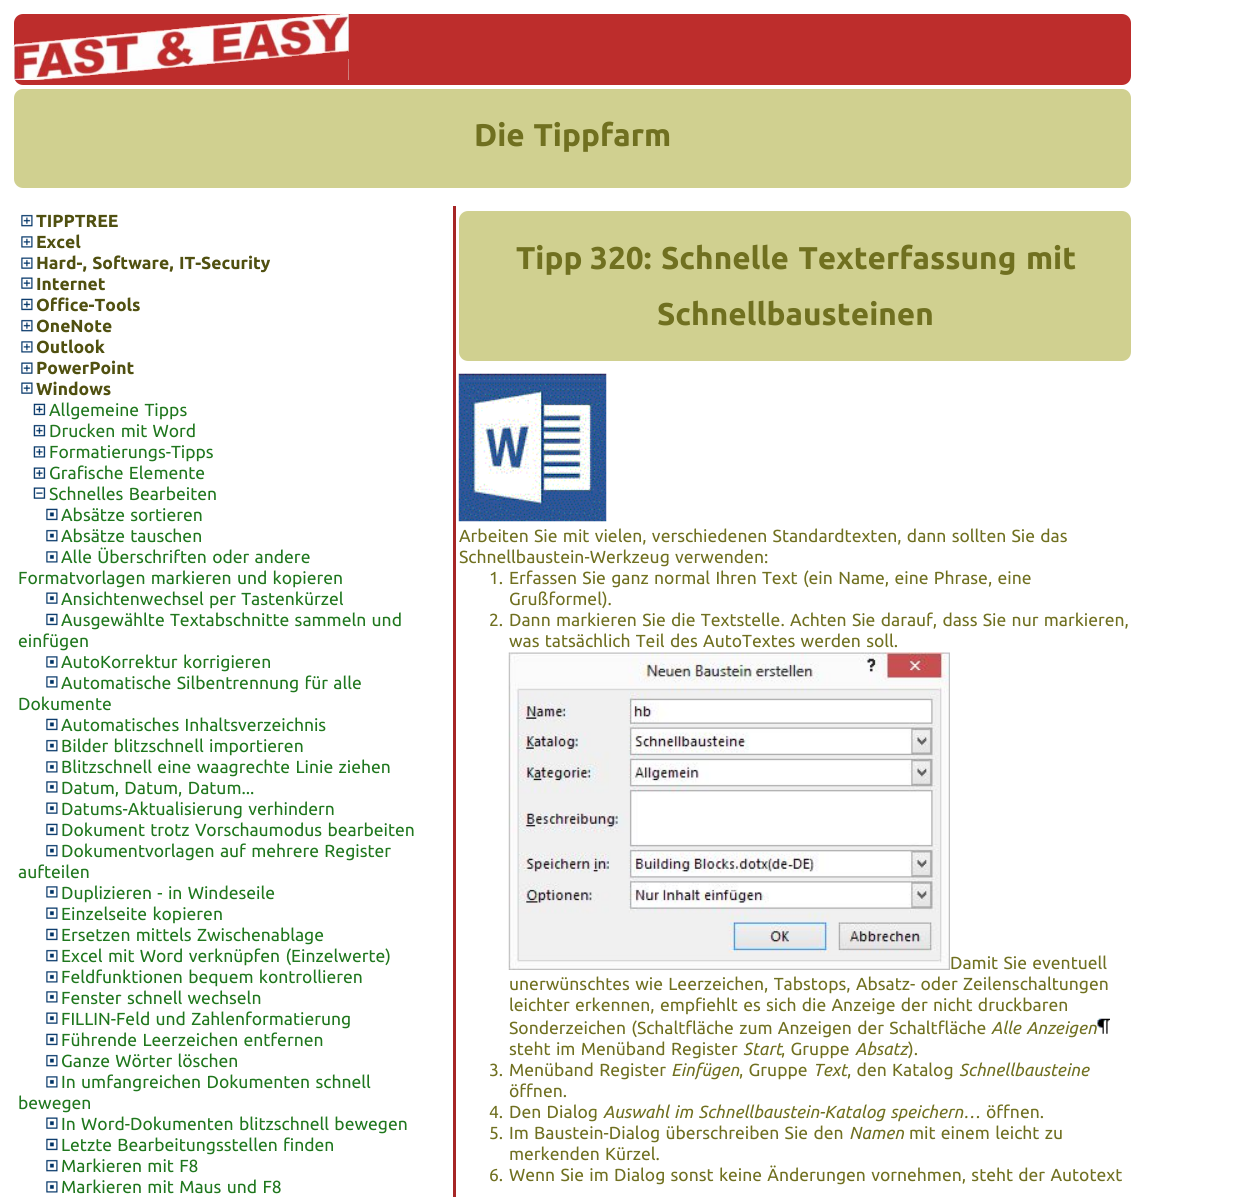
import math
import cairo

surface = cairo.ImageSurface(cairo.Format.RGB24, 1247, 1197)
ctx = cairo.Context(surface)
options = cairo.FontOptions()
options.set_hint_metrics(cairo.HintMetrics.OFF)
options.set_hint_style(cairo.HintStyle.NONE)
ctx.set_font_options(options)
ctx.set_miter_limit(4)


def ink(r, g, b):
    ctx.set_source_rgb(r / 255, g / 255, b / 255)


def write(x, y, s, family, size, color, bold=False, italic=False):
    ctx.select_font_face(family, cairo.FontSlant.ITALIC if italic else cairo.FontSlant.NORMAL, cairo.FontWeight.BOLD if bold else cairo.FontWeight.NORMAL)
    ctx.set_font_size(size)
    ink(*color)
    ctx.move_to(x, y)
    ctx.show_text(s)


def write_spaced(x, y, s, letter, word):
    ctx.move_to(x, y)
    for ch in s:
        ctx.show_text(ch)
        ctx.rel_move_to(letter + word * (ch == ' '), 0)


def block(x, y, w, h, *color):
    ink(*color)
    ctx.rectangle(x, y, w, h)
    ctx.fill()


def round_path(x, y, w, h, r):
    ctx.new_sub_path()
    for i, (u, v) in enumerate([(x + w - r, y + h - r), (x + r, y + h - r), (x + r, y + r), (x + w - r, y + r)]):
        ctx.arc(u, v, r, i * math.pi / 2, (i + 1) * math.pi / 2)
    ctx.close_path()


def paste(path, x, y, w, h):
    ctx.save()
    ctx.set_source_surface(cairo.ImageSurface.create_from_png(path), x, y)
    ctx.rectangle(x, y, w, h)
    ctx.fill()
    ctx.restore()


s1 = dict(family="Ubuntu", size=17.5, color=(80, 80, 16), bold=True)
s2 = dict(family="Ubuntu", size=17.5, color=(31, 119, 29))
s3 = dict(family="Ubuntu", size=31.5, color=(112, 112, 32), bold=True)
s4 = dict(family="Ubuntu", size=17.5, color=(112, 112, 32))
s5 = dict(family="Ubuntu", size=17.5, color=(112, 112, 32), italic=True)

ink(255, 255, 255)
ctx.paint()
ink(189, 45, 44)
round_path(14, 14, 1117, 71, 9)
ctx.fill()
paste("pic1.png", 13, 13, 336, 67)
ink(208, 208, 144)
round_path(14, 89, 1117, 99, 9)
ctx.fill()
ctx.select_font_face("Ubuntu", cairo.FontSlant.NORMAL, cairo.FontWeight.BOLD)
ctx.set_font_size(31.5)
ink(112, 112, 32)
write_spaced(474, 146, "Die Tippfarm", 0, 1.25)
block(453, 206, 3, 991, 166, 38, 38)
paste("pic2.png", 21, 214, 12, 13)
write(36, 227, "TIPPTREE", **s1)
paste("pic3.png", 21, 236, 12, 12)
write(36, 248, "Excel", **s1)
paste("pic4.png", 21, 257, 12, 12)
write_spaced(36, 269, "Hard-, Software, IT-Security", 0, 1.25)
paste("pic5.png", 21, 277, 12, 12)
write(36, 290, "Internet", **s1)
paste("pic6.png", 21, 298, 12, 13)
write(36, 311, "Office-Tools", **s1)
paste("pic2.png", 21, 319, 12, 13)
write(36, 332, "OneNote", **s1)
paste("pic3.png", 21, 341, 12, 12)
write(36, 353, "Outlook", **s1)
paste("pic5.png", 21, 362, 12, 12)
write(36, 374, "PowerPoint", **s1)
paste("pic5.png", 21, 382, 12, 12)
write(36, 395, "Windows", **s1)
paste("pic7.png", 33, 403, 13, 13)
ctx.select_font_face("Ubuntu")
ink(31, 119, 29)
write_spaced(49, 416, "Allgemeine Tipps", 0, 1.25)
paste("pic8.png", 33, 424, 13, 13)
write_spaced(49, 437, "Drucken mit Word", 0, 1.25)
paste("pic9.png", 33, 446, 13, 12)
write(49, 458, "Formatierungs-Tipps", **s2)
paste("pic10.png", 33, 467, 13, 12)
write_spaced(49, 479, "Grafische Elemente", 0, 1.25)
paste("pic11.png", 33, 487, 13, 12)
write_spaced(49, 500, "Schnelles Bearbeiten", 0, 1.25)
paste("pic12.png", 46, 508, 12, 13)
write_spaced(61, 521, "Absätze sortieren", 0, 1.25)
paste("pic13.png", 46, 529, 12, 13)
write_spaced(61, 542, "Absätze tauschen", 0, 1.25)
paste("pic14.png", 46, 551, 12, 12)
write_spaced(61, 563, "Alle Überschriften oder andere", 0, 1.25)
write_spaced(18, 584, "Formatvorlagen markieren und kopieren", 0, 1.25)
paste("pic15.png", 46, 592, 12, 12)
write_spaced(61, 605, "Ansichtenwechsel per Tastenkürzel", 0, 1.25)
paste("pic12.png", 46, 613, 12, 13)
write_spaced(61, 626, "Ausgewählte Textabschnitte sammeln und", 0, 1.25)
write(18, 647, "einfügen", **s2)
paste("pic14.png", 46, 656, 12, 12)
write_spaced(61, 668, "AutoKorrektur korrigieren", 0, 1.25)
paste("pic14.png", 46, 676, 12, 12)
write_spaced(61, 689, "Automatische Silbentrennung für alle", 0, 1.25)
write(18, 710, "Dokumente", **s2)
paste("pic12.png", 46, 718, 12, 13)
write_spaced(61, 731, "Automatisches Inhaltsverzeichnis", 0, 1.25)
paste("pic13.png", 46, 739, 12, 13)
write_spaced(61, 752, "Bilder blitzschnell importieren", 0, 1.25)
paste("pic14.png", 46, 761, 12, 12)
write_spaced(61, 773, "Blitzschnell eine waagrechte Linie ziehen", 0, 1.25)
paste("pic16.png", 46, 781, 12, 12)
write_spaced(61, 794, "Datum, Datum, Datum...", 0, 1.25)
paste("pic15.png", 46, 802, 12, 12)
write_spaced(61, 815, "Datums-Aktualisierung verhindern", 0, 1.25)
paste("pic12.png", 46, 823, 12, 13)
write_spaced(61, 836, "Dokument trotz Vorschaumodus bearbeiten", 0, 1.25)
paste("pic13.png", 46, 844, 12, 13)
write_spaced(61, 857, "Dokumentvorlagen auf mehrere Register", 0, 1.25)
write(18, 878, "aufteilen", **s2)
paste("pic14.png", 46, 886, 12, 12)
write_spaced(61, 899, "Duplizieren - in Windeseile", 0, 1.25)
paste("pic15.png", 46, 907, 12, 12)
write_spaced(61, 920, "Einzelseite kopieren", 0, 1.25)
paste("pic12.png", 46, 928, 12, 13)
write_spaced(61, 941, "Ersetzen mittels Zwischenablage", 0, 1.25)
paste("pic13.png", 46, 949, 12, 13)
write_spaced(61, 962, "Excel mit Word verknüpfen (Einzelwerte)", 0, 1.25)
paste("pic14.png", 46, 971, 12, 12)
write_spaced(61, 983, "Feldfunktionen bequem kontrollieren", 0, 1.25)
paste("pic14.png", 46, 991, 12, 12)
write_spaced(61, 1004, "Fenster schnell wechseln", 0, 1.25)
paste("pic15.png", 46, 1012, 12, 12)
write_spaced(61, 1025, "FILLIN-Feld und Zahlenformatierung", 0, 1.25)
paste("pic12.png", 46, 1033, 12, 13)
write_spaced(61, 1046, "Führende Leerzeichen entfernen", 0, 1.25)
paste("pic13.png", 46, 1054, 12, 13)
write_spaced(61, 1067, "Ganze Wörter löschen", 0, 1.25)
paste("pic14.png", 46, 1076, 12, 12)
write_spaced(61, 1088, "In umfangreichen Dokumenten schnell", 0, 1.25)
write(18, 1109, "bewegen", **s2)
paste("pic15.png", 46, 1117, 12, 12)
write_spaced(61, 1130, "In Word-Dokumenten blitzschnell bewegen", 0, 1.25)
paste("pic12.png", 46, 1138, 12, 13)
write_spaced(61, 1151, "Letzte Bearbeitungsstellen finden", 0, 1.25)
paste("pic13.png", 46, 1159, 12, 13)
write_spaced(61, 1172, "Markieren mit F8", 0, 1.25)
paste("pic14.png", 46, 1181, 12, 12)
write_spaced(61, 1193, "Markieren mit Maus und F8", 0, 1.25)
ink(208, 208, 144)
round_path(459, 211, 672, 150, 9)
ctx.fill()
write(516, 269, "Tipp 320:", **s3)
write_spaced(661, 269, "Schnelle Texterfassung mit", 0, 2)
write(657, 325, "Schnellbausteinen", **s3)
paste("pic17.png", 458, 373, 149, 149)
ctx.select_font_face("Ubuntu")
ctx.set_font_size(17.5)
write_spaced(459, 542, "Arbeiten Sie mit vielen, verschiedenen Standardtexten, dann sollten Sie das", 0, 1.25)
write_spaced(459, 563, "Schnellbaustein-Werkzeug verwenden:", 0, 1.25)
write(489, 584, "1.", **s4)
write_spaced(509, 584, "Erfassen Sie ganz normal Ihren Text (ein Name, eine Phrase, eine", 0, 1.25)
write(509, 605, "Grußformel).", **s4)
write(489, 626, "2.", **s4)
write_spaced(509, 626, "Dann markieren Sie die Textstelle. Achten Sie darauf, dass Sie nur markieren,", 0, 1.25)
write_spaced(509, 647, "was tatsächlich Teil des AutoTextes werden soll.", 0, 1.25)
paste("pic18.png", 508, 652, 442, 318)
write_spaced(950, 969, "Damit Sie eventuell", 0, 1.25)
write_spaced(509, 990, "unerwünschtes wie Leerzeichen, Tabstops, Absatz- oder Zeilenschaltungen", 0, 1.25)
write_spaced(509, 1011, "leichter erkennen, empfiehlt es sich die Anzeige der nicht druckbaren", 0, 1.25)
write_spaced(509, 1034, "Sonderzeichen (Schaltfläche zum Anzeigen der Schaltfläche", 0, 1.25)
ctx.select_font_face("Ubuntu", cairo.FontSlant.ITALIC)
write_spaced(991, 1034, "Alle Anzeigen", 0, 1.25)
paste("pic19.png", 1097, 1018, 13, 16)
ctx.select_font_face("Ubuntu")
write_spaced(509, 1055, "steht im Menüband Register", 0, 1.25)
write(743, 1055, "Start", **s5)
ctx.select_font_face("Ubuntu")
write_spaced(781, 1055, ", Gruppe", 0, 1.25)
write(855, 1055, "Absatz", **s5)
write(908, 1055, ").", **s4)
write(489, 1076, "3.", **s4)
write_spaced(509, 1076, "Menüband Register", 0, 1.25)
write(671, 1076, "Einfügen", **s5)
ctx.select_font_face("Ubuntu")
write_spaced(739, 1076, ", Gruppe", 0, 1.25)
write(813, 1076, "Text", **s5)
ctx.select_font_face("Ubuntu")
write_spaced(847, 1076, ", den Katalog", 0, 1.25)
write(959, 1076, "Schnellbausteine", **s5)
write(509, 1097, "öffnen.", **s4)
write(489, 1118, "4.", **s4)
write_spaced(509, 1118, "Den Dialog", 0, 1.25)
ctx.select_font_face("Ubuntu", cairo.FontSlant.ITALIC)
write_spaced(603, 1118, "Auswahl im Schnellbaustein-Katalog speichern…", 0, 1.25)
write(986, 1118, "öffnen.", **s4)
write(489, 1139, "5.", **s4)
write_spaced(509, 1139, "Im Baustein-Dialog überschreiben Sie den", 0, 1.25)
write(849, 1139, "Namen", **s5)
ctx.select_font_face("Ubuntu")
write_spaced(909, 1139, "mit einem leicht zu", 0, 1.25)
write_spaced(509, 1160, "merkenden Kürzel.", 0, 1.25)
write(489, 1181, "6.", **s4)
write_spaced(509, 1181, "Wenn Sie im Dialog sonst keine Änderungen vornehmen, steht der Autotext", 0, 1.25)
surface.write_to_png("screenshot.png")
